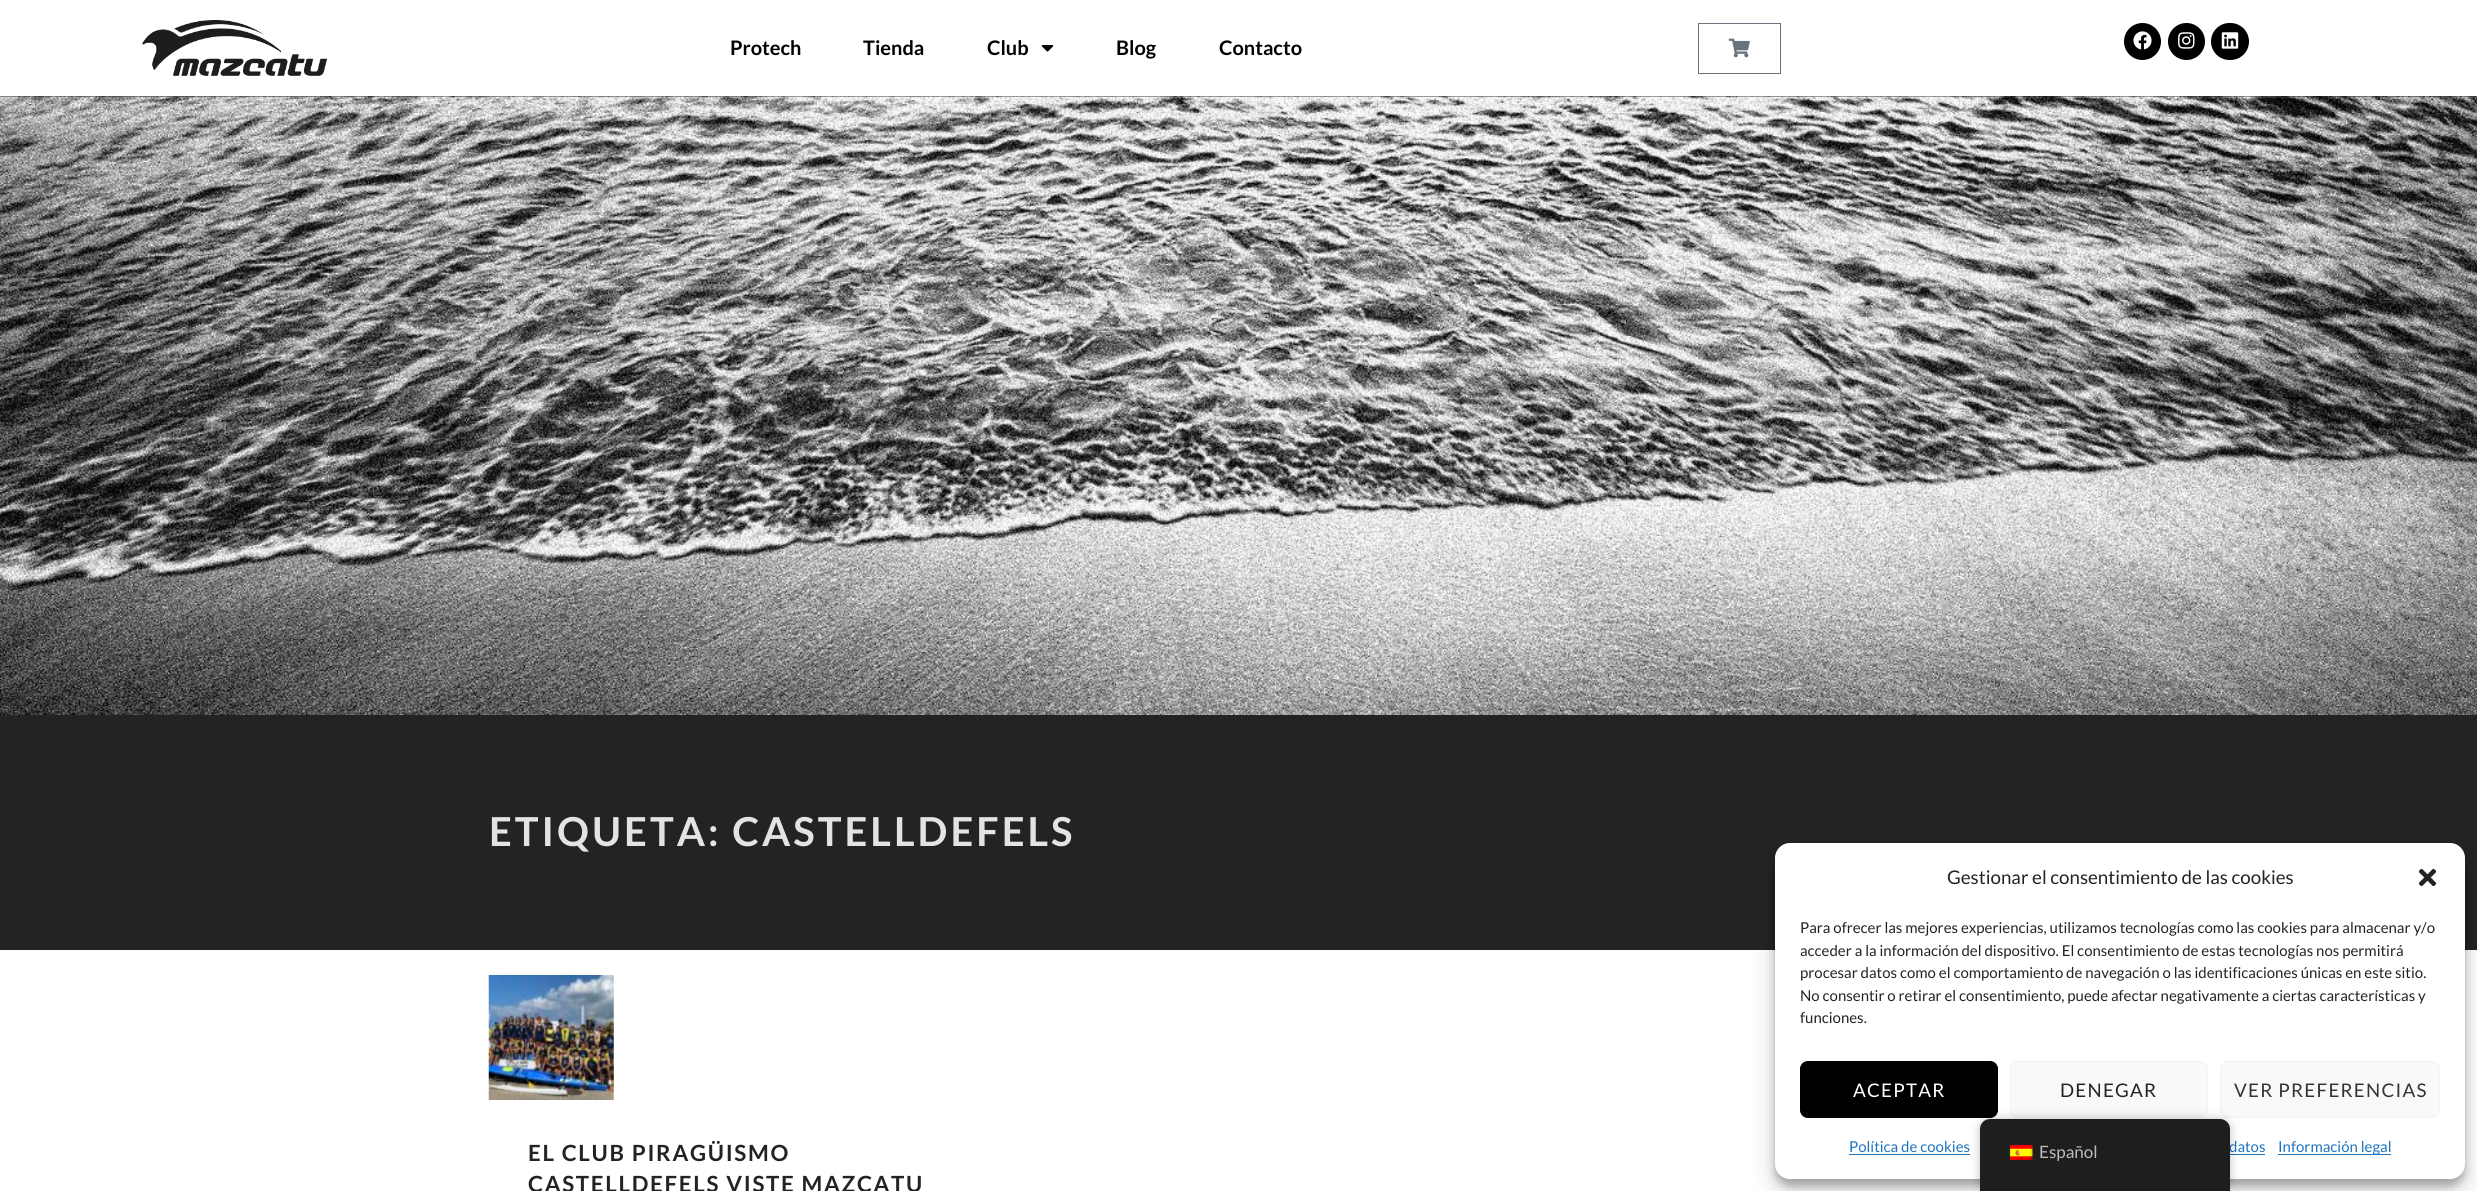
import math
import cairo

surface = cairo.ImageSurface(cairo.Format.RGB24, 2477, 1191)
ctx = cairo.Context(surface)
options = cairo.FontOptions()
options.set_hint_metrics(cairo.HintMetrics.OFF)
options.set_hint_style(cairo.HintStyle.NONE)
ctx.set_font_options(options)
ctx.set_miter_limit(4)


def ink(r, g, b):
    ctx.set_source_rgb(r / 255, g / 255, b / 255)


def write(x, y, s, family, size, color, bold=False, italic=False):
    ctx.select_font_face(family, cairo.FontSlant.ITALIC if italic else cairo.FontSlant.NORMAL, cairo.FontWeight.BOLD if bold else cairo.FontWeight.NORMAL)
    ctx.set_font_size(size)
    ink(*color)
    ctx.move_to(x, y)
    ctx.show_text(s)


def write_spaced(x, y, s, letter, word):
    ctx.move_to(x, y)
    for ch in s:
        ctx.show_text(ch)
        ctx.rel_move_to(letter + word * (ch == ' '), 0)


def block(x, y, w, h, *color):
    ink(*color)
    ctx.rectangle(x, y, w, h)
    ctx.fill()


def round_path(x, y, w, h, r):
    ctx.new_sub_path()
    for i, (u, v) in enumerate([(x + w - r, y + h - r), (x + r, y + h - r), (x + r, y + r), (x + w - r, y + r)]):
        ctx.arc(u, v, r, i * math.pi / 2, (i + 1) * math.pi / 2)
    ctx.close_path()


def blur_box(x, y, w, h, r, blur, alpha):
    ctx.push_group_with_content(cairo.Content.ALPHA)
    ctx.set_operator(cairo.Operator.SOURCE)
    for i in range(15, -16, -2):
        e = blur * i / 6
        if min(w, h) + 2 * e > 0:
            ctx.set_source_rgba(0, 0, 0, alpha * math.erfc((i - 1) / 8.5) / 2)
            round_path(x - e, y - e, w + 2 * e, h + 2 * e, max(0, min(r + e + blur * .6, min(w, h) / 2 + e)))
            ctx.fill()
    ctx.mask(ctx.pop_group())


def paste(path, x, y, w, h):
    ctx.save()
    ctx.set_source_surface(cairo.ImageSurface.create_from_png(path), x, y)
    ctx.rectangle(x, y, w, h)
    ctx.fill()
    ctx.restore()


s1 = dict(family="Lato", size=20, color=(0, 0, 0), bold=True)
s2 = dict(family="Lato", size=18.75, color=(36, 35, 35))
s3 = dict(family="Lato", size=15, color=(36, 35, 35))
s4 = dict(family="Lato", size=15, color=(30, 115, 190))
s5 = dict(family="Lato", size=17, color=(189, 189, 189))

ink(255, 255, 255)
ctx.paint()
paste("pic1.png", 142, 20, 185, 56)
write(730, 55, "Protech", **s1)
write(863, 55, "Tienda", **s1)
write(987, 55, "Club", **s1)
paste("pic2.png", 1041, 45, 13, 7)
write(1116, 55, "Blog", **s1)
write(1219, 55, "Contacto", **s1)
ctx.rectangle(1698.5, 23.5, 82, 50)
ink(105, 114, 125)
ctx.set_line_width(1)
ctx.stroke()
paste("pic3.png", 1728, 38, 22, 20)
ink(0, 0, 0)
ctx.arc(2142.5, 41.5, 18.5, 0, 2 * math.pi)
ctx.fill()
paste("pic4.png", 2133, 31, 19, 19)
ctx.arc(2186.5, 41.5, 18.5, 0, 2 * math.pi)
ctx.fill()
paste("pic5.png", 2178, 32, 17, 17)
round_path(2211, 23, 38, 37, 18.5)
ctx.fill()
paste("pic6.png", 2221, 32, 18, 17)
block(0, 96, 2477, 854, 36, 35, 35)
paste("pic7.png", 0, 96, 2477, 619)
ctx.set_font_size(39.9)
ink(228, 227, 227)
write_spaced(489, 846, "ETIQUETA: CASTELLDEFELS", 3, 0)
paste("pic8.png", 488, 975, 126, 125)
ctx.set_font_size(22.3)
ink(36, 35, 35)
write_spaced(528, 1161, "EL CLUB PIRAGÜISMO", 1.7, 0)
write_spaced(528, 1192, "CASTELLDEFELS VISTE MAZCATU", 1.7, 0)
ink(0, 0, 0)
blur_box(1775, 850, 690, 336, 15, 4, 0.23)
blur_box(1775, 855, 690, 336, 15, 12.5, 0.19)
ink(255, 255, 255)
round_path(1775, 843, 690, 336, 15)
ctx.fill()
write(1947, 884, "Gestionar el consentimiento de las cookies", **s2)
paste("pic9.png", 2418, 868, 19, 19)
write(1800, 933, "Para ofrecer las mejores experiencias, utilizamos tecnologías como las cookies para almacenar y/o", **s3)
write(1800, 956, "acceder a la información del dispositivo. El consentimiento de estas tecnologías nos permitirá", **s3)
write(1800, 978, "procesar datos como el comportamiento de navegación o las identificaciones únicas en este sitio.", **s3)
write(1800, 1001, "No consentir o retirar el consentimiento, puede afectar negativamente a ciertas características y", **s3)
write(1800, 1023, "funciones.", **s3)
ink(0, 0, 0)
round_path(1800.5, 1061.5, 197, 56, 7.5)
ctx.fill_preserve()
ctx.stroke()
ctx.set_font_size(18.75)
ink(255, 255, 255)
write_spaced(1853, 1097, "ACEPTAR", 1.25, 0)
ink(249, 249, 249)
round_path(2010.5, 1061.5, 197, 56, 7.5)
ctx.fill_preserve()
ink(242, 242, 242)
ctx.stroke()
ink(36, 35, 35)
write_spaced(2060, 1097, "DENEGAR", 1.25, 0)
ink(249, 249, 249)
round_path(2220.5, 1061.5, 219, 56, 7.5)
ctx.fill_preserve()
ink(242, 242, 242)
ctx.stroke()
ink(51, 51, 51)
write_spaced(2234, 1097, "VER PREFERENCIAS", 1.25, 0)
write(1849, 1152, "Política de cookies", **s4)
block(1849, 1154, 121, 1, 30, 115, 190)
write(2229, 1152, "datos", **s4)
block(2230, 1154, 35, 1, 30, 115, 190)
block(2278, 1154, 113, 1, 30, 115, 190)
write(2278, 1152, "Información legal", **s4)
ink(0, 0, 0)
blur_box(1980, 1119, 250, 72, 10, 5, 0.25)
ink(30, 30, 30)
ctx.new_path()
ctx.move_to(1990, 1119)
ctx.line_to(2220, 1119)
ctx.curve_to(2225.5, 1119, 2230, 1123.5, 2230, 1129)
ctx.line_to(2230, 1191)
ctx.line_to(1980, 1191)
ctx.line_to(1980, 1129)
ctx.curve_to(1980, 1123.5, 1984.5, 1119, 1990, 1119)
ctx.close_path()
ctx.fill()
paste("pic10.png", 2009, 1144, 24, 16)
write(2039, 1158, "Español", **s5)
surface.write_to_png("screenshot.png")
